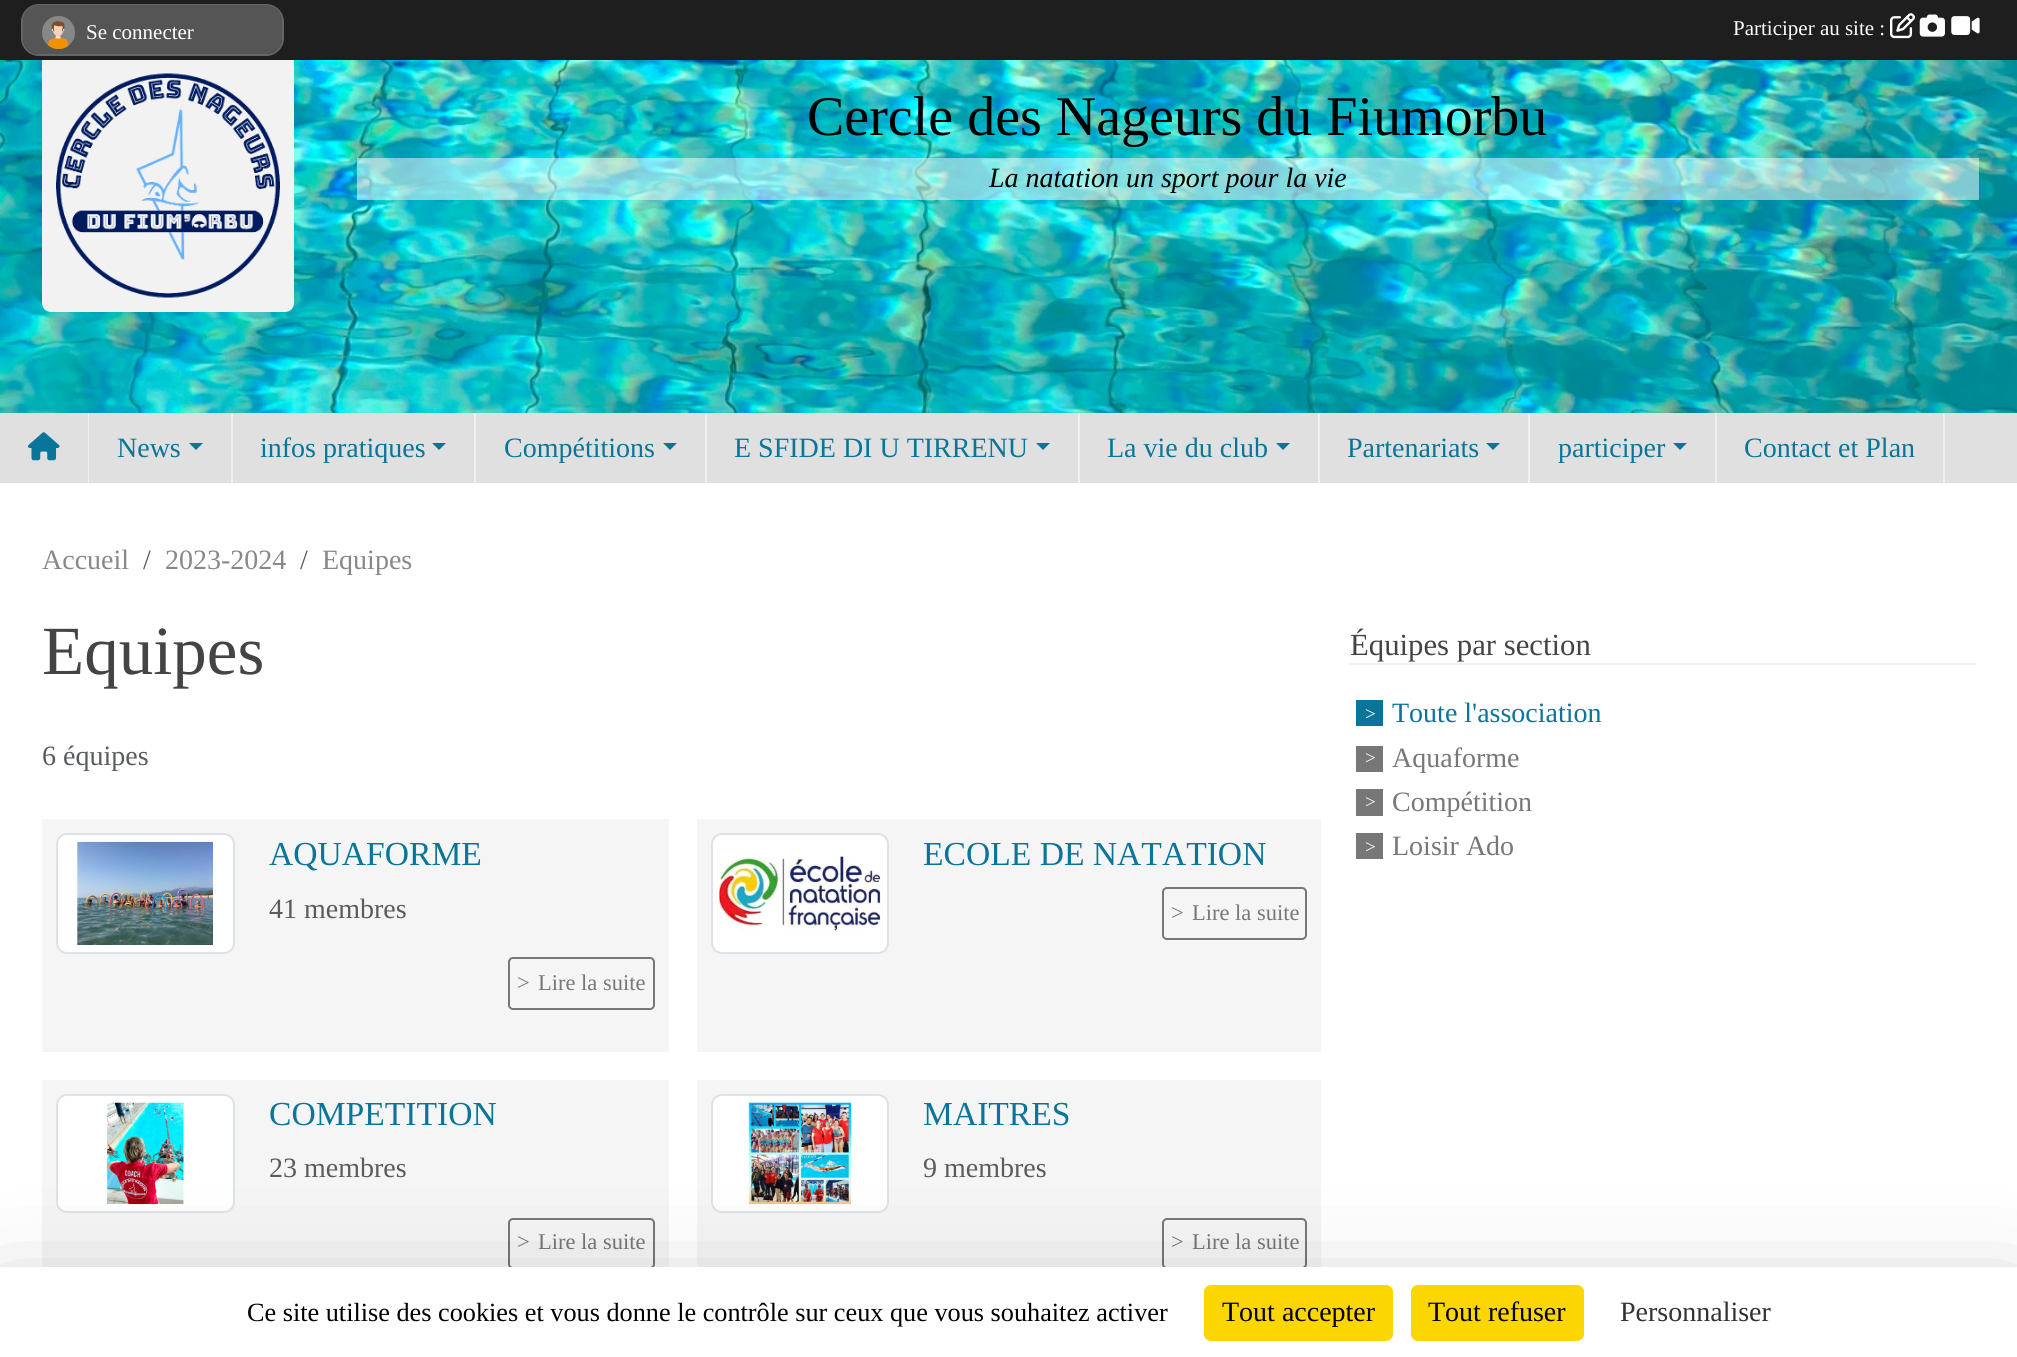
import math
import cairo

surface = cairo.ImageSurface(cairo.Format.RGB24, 2017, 1357)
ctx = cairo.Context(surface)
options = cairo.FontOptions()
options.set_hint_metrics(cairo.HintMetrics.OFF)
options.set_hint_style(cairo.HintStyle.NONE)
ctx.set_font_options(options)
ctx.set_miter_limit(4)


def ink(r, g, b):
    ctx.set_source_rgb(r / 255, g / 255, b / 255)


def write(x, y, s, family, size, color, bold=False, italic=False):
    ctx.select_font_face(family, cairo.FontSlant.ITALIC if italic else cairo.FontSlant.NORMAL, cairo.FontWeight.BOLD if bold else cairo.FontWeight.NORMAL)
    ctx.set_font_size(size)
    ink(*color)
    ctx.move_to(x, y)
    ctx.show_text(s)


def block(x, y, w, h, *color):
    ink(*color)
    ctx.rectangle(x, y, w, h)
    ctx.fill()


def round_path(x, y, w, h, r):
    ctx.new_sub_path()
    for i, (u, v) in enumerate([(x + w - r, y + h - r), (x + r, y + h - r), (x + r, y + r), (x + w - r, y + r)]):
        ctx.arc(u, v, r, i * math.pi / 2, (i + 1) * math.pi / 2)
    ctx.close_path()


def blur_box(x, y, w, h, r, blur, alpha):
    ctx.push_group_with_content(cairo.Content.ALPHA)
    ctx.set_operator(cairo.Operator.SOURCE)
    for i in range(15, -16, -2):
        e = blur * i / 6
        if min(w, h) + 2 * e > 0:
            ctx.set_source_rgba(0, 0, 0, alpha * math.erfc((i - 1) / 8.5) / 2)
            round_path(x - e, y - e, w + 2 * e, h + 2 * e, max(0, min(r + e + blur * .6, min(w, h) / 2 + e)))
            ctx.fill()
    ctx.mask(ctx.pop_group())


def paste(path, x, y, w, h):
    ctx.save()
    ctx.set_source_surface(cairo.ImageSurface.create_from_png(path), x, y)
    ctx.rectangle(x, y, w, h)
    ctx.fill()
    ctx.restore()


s1 = dict(family="Liberation Serif", size=21, color=(255, 255, 255))
s2 = dict(family="Liberation Serif", size=56, color=(0, 0, 0))
s3 = dict(family="Liberation Serif", size=28, color=(0, 0, 0), italic=True)
s4 = dict(family="Liberation Serif", size=28, color=(9, 117, 153))
s5 = dict(family="Liberation Serif", size=28, color=(136, 136, 136))
s6 = dict(family="Liberation Serif", size=28, color=(89, 92, 95))
s7 = dict(family="Liberation Serif", size=69, color=(68, 68, 68))
s8 = dict(family="Liberation Serif", size=33.6, color=(9, 117, 153))
s9 = dict(family="Liberation Serif", size=22.5, color=(119, 119, 119))
s10 = dict(family="Liberation Serif", size=30.75, color=(68, 68, 68))
s11 = dict(family="Liberation Serif", size=19, color=(255, 255, 255))
s12 = dict(family="Liberation Serif", size=28, color=(119, 119, 119))
s13 = dict(family="Liberation Serif", size=26.25, color=(0, 0, 0))
s14 = dict(family="Liberation Serif", size=28, color=(0, 0, 0))
s15 = dict(family="Liberation Serif", size=28, color=(51, 51, 51))

ink(255, 255, 255)
ctx.paint()
block(0, 0, 2017, 60, 30, 30, 30)
round_path(22, 5, 261, 50, 17)
ink(102, 102, 102)
ctx.stroke()
ink(85, 85, 85)
round_path(23, 5, 259, 49, 16)
ctx.fill()
paste("pic1.png", 42, 16, 33, 33)
write(86, 39, "Se connecter", **s1)
write(1733, 35, "Participer au site :", **s1)
paste("pic2.png", 1890, 13, 25, 26)
paste("pic3.png", 1919, 14, 26, 23)
paste("pic4.png", 1951, 16, 29, 19)
paste("pic6.png", 0, 60, 2017, 353)
ink(242, 242, 242)
ctx.new_path()
ctx.move_to(42, 60)
ctx.line_to(294, 60)
ctx.line_to(294, 303)
ctx.curve_to(294, 308, 290, 312, 285, 312)
ctx.line_to(51, 312)
ctx.curve_to(46, 312, 42, 308, 42, 303)
ctx.close_path()
ctx.fill()
paste("pic5.png", 56, 73, 224, 225)
write(807, 135, "Cercle des Nageurs du Fiumorbu", **s2)
ctx.set_source_rgba(1, 1, 1, 0.5)
ctx.rectangle(357, 158, 1622, 42)
ctx.fill()
write(989, 187, "La natation un sport pour la vie", **s3)
block(0, 413, 2017, 70, 224, 224, 224)
block(88, 413, 1, 70, 240, 240, 240)
paste("pic7.png", 28, 432, 32, 29)
block(231, 413, 2, 70, 240, 240, 240)
write(117, 457, "News", **s4)
ctx.new_path()
ctx.move_to(189, 443)
ctx.line_to(203, 443)
ctx.line_to(196, 450)
ctx.close_path()
ctx.fill()
block(474, 413, 2, 70, 240, 240, 240)
write(260, 457, "infos pratiques", **s4)
ctx.new_path()
ctx.move_to(432, 443)
ctx.line_to(446, 443)
ctx.line_to(439, 450)
ctx.close_path()
ctx.fill()
block(705, 413, 2, 70, 240, 240, 240)
write(504, 457, "Compétitions", **s4)
ctx.new_path()
ctx.move_to(663, 443)
ctx.line_to(677, 443)
ctx.line_to(670, 450)
ctx.close_path()
ctx.fill()
block(1078, 413, 2, 70, 240, 240, 240)
write(734, 457, "E SFIDE DI U TIRRENU", **s4)
ctx.new_path()
ctx.move_to(1036, 443)
ctx.line_to(1050, 443)
ctx.line_to(1043, 450)
ctx.close_path()
ctx.fill()
block(1318, 413, 2, 70, 240, 240, 240)
write(1107, 457, "La vie du club", **s4)
ctx.new_path()
ctx.move_to(1276, 443)
ctx.line_to(1290, 443)
ctx.line_to(1283, 450)
ctx.close_path()
ctx.fill()
block(1528, 413, 2, 70, 240, 240, 240)
write(1347, 457, "Partenariats", **s4)
ctx.new_path()
ctx.move_to(1486, 443)
ctx.line_to(1500, 443)
ctx.line_to(1493, 450)
ctx.close_path()
ctx.fill()
block(1715, 413, 2, 70, 240, 240, 240)
write(1558, 457, "participer", **s4)
ctx.new_path()
ctx.move_to(1673, 443)
ctx.line_to(1687, 443)
ctx.line_to(1680, 450)
ctx.close_path()
ctx.fill()
block(1943, 413, 2, 70, 240, 240, 240)
write(1744, 457, "Contact et Plan", **s4)
write(42, 569, "Accueil", **s5)
write(143, 569, "/", **s6)
write(165, 569, "2023-2024", **s5)
write(300, 569, "/", **s6)
write(322, 569, "Equipes", **s5)
write(42, 674, "Equipes", **s7)
write(42, 765, "6 équipes", **s6)
block(42, 819, 627, 233, 245, 245, 245)
ink(255, 255, 255)
round_path(57, 834, 177, 119, 10)
ctx.fill_preserve()
ink(222, 226, 230)
ctx.stroke()
paste("pic8.png", 77, 841, 136, 104)
write(269, 865, "AQUAFORME", **s8)
write(269, 918, "41 membres", **s6)
round_path(509, 958, 145, 51, 4)
ink(119, 119, 119)
ctx.stroke()
write(517, 990, ">", **s9)
write(538, 990, "Lire la suite", **s9)
block(697, 819, 624, 233, 245, 245, 245)
ink(255, 255, 255)
round_path(712, 834, 176, 119, 10)
ctx.fill_preserve()
ink(222, 226, 230)
ctx.stroke()
paste("pic9.png", 719, 856, 162, 75)
write(923, 865, "ECOLE DE NATATION", **s8)
round_path(1163, 888, 143, 51, 4)
ink(119, 119, 119)
ctx.stroke()
write(1171, 920, ">", **s9)
write(1192, 920, "Lire la suite", **s9)
block(42, 1080, 627, 187, 245, 245, 245)
ink(255, 255, 255)
round_path(57, 1095, 177, 117, 10)
ctx.fill_preserve()
ink(222, 226, 230)
ctx.stroke()
paste("pic10.png", 106, 1102, 79, 102)
write(269, 1125, "COMPETITION", **s8)
write(269, 1177, "23 membres", **s6)
round_path(509, 1219, 145, 49, 4)
ink(119, 119, 119)
ctx.stroke()
write(517, 1249, ">", **s9)
write(538, 1249, "Lire la suite", **s9)
block(697, 1080, 624, 187, 245, 245, 245)
ink(255, 255, 255)
round_path(712, 1095, 176, 117, 10)
ctx.fill_preserve()
ink(222, 226, 230)
ctx.stroke()
paste("pic11.png", 748, 1102, 103, 102)
write(923, 1125, "MAITRES", **s8)
write(923, 1177, "9 membres", **s6)
round_path(1163, 1219, 143, 49, 4)
ink(119, 119, 119)
ctx.stroke()
write(1171, 1249, ">", **s9)
write(1192, 1249, "Lire la suite", **s9)
block(1349, 663, 627, 2, 240, 240, 240)
write(1350, 655, "Équipes par section", **s10)
block(1356, 700, 27, 26, 9, 117, 153)
write(1365, 720, ">", **s11)
write(1392, 722, "Toute l'association", **s4)
block(1356, 746, 27, 26, 119, 119, 119)
write(1365, 764, ">", **s11)
write(1392, 767, "Aquaforme", **s12)
block(1356, 789, 27, 27, 119, 119, 119)
write(1365, 808, ">", **s11)
write(1392, 811, "Compétition", **s12)
block(1356, 833, 27, 26, 119, 119, 119)
write(1365, 853, ">", **s11)
write(1392, 855, "Loisir Ado", **s12)
ink(0, 0, 0)
blur_box(0, 1302, 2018, 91, 0, 52.5, 0.25)
block(0, 1267, 2017, 90, 255, 255, 255)
write(247, 1321, "Ce site utilise des cookies et vous donne le contrôle sur ceux que vous souhaitez activer", **s13)
ink(251, 214, 0)
round_path(1204, 1285, 189, 56, 7)
ctx.fill()
write(1222, 1321, "Tout accepter", **s14)
ink(251, 214, 0)
round_path(1411, 1285, 173, 56, 7)
ctx.fill()
write(1428, 1321, "Tout refuser", **s14)
write(1620, 1321, "Personnaliser", **s15)
surface.write_to_png("screenshot.png")
